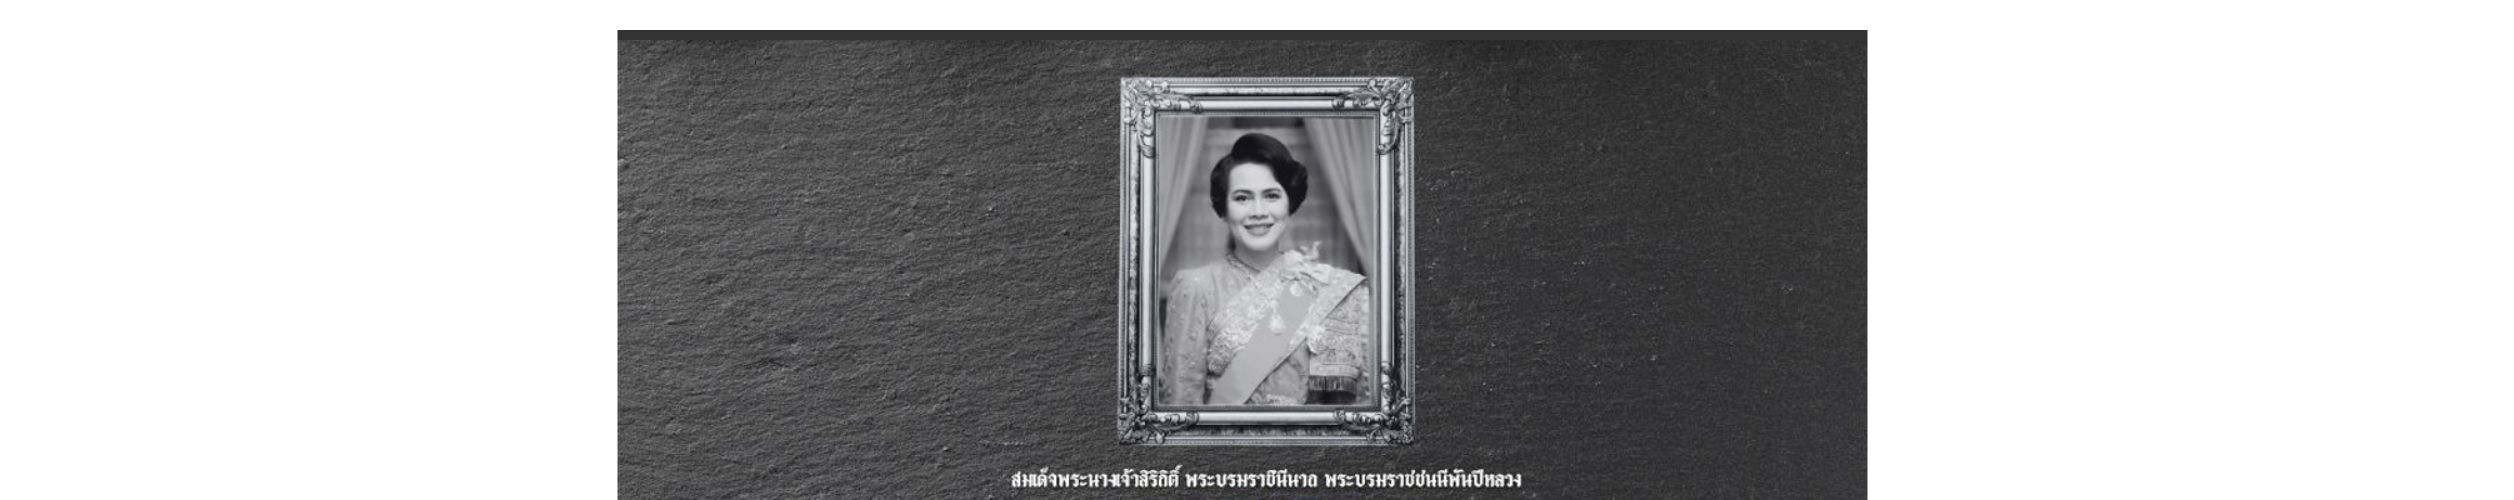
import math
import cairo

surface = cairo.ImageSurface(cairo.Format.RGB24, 2514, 500)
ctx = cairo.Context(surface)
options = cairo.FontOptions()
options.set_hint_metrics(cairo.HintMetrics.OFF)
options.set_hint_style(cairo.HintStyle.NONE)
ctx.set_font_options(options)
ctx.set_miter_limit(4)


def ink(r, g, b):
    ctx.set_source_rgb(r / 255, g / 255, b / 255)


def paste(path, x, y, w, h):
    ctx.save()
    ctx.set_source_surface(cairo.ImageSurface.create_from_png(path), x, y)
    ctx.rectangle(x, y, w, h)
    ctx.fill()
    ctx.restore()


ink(255, 255, 255)
ctx.paint()
paste("pic1.png", 617, 30, 1251, 470)
surface.write_to_png("screenshot.png")
